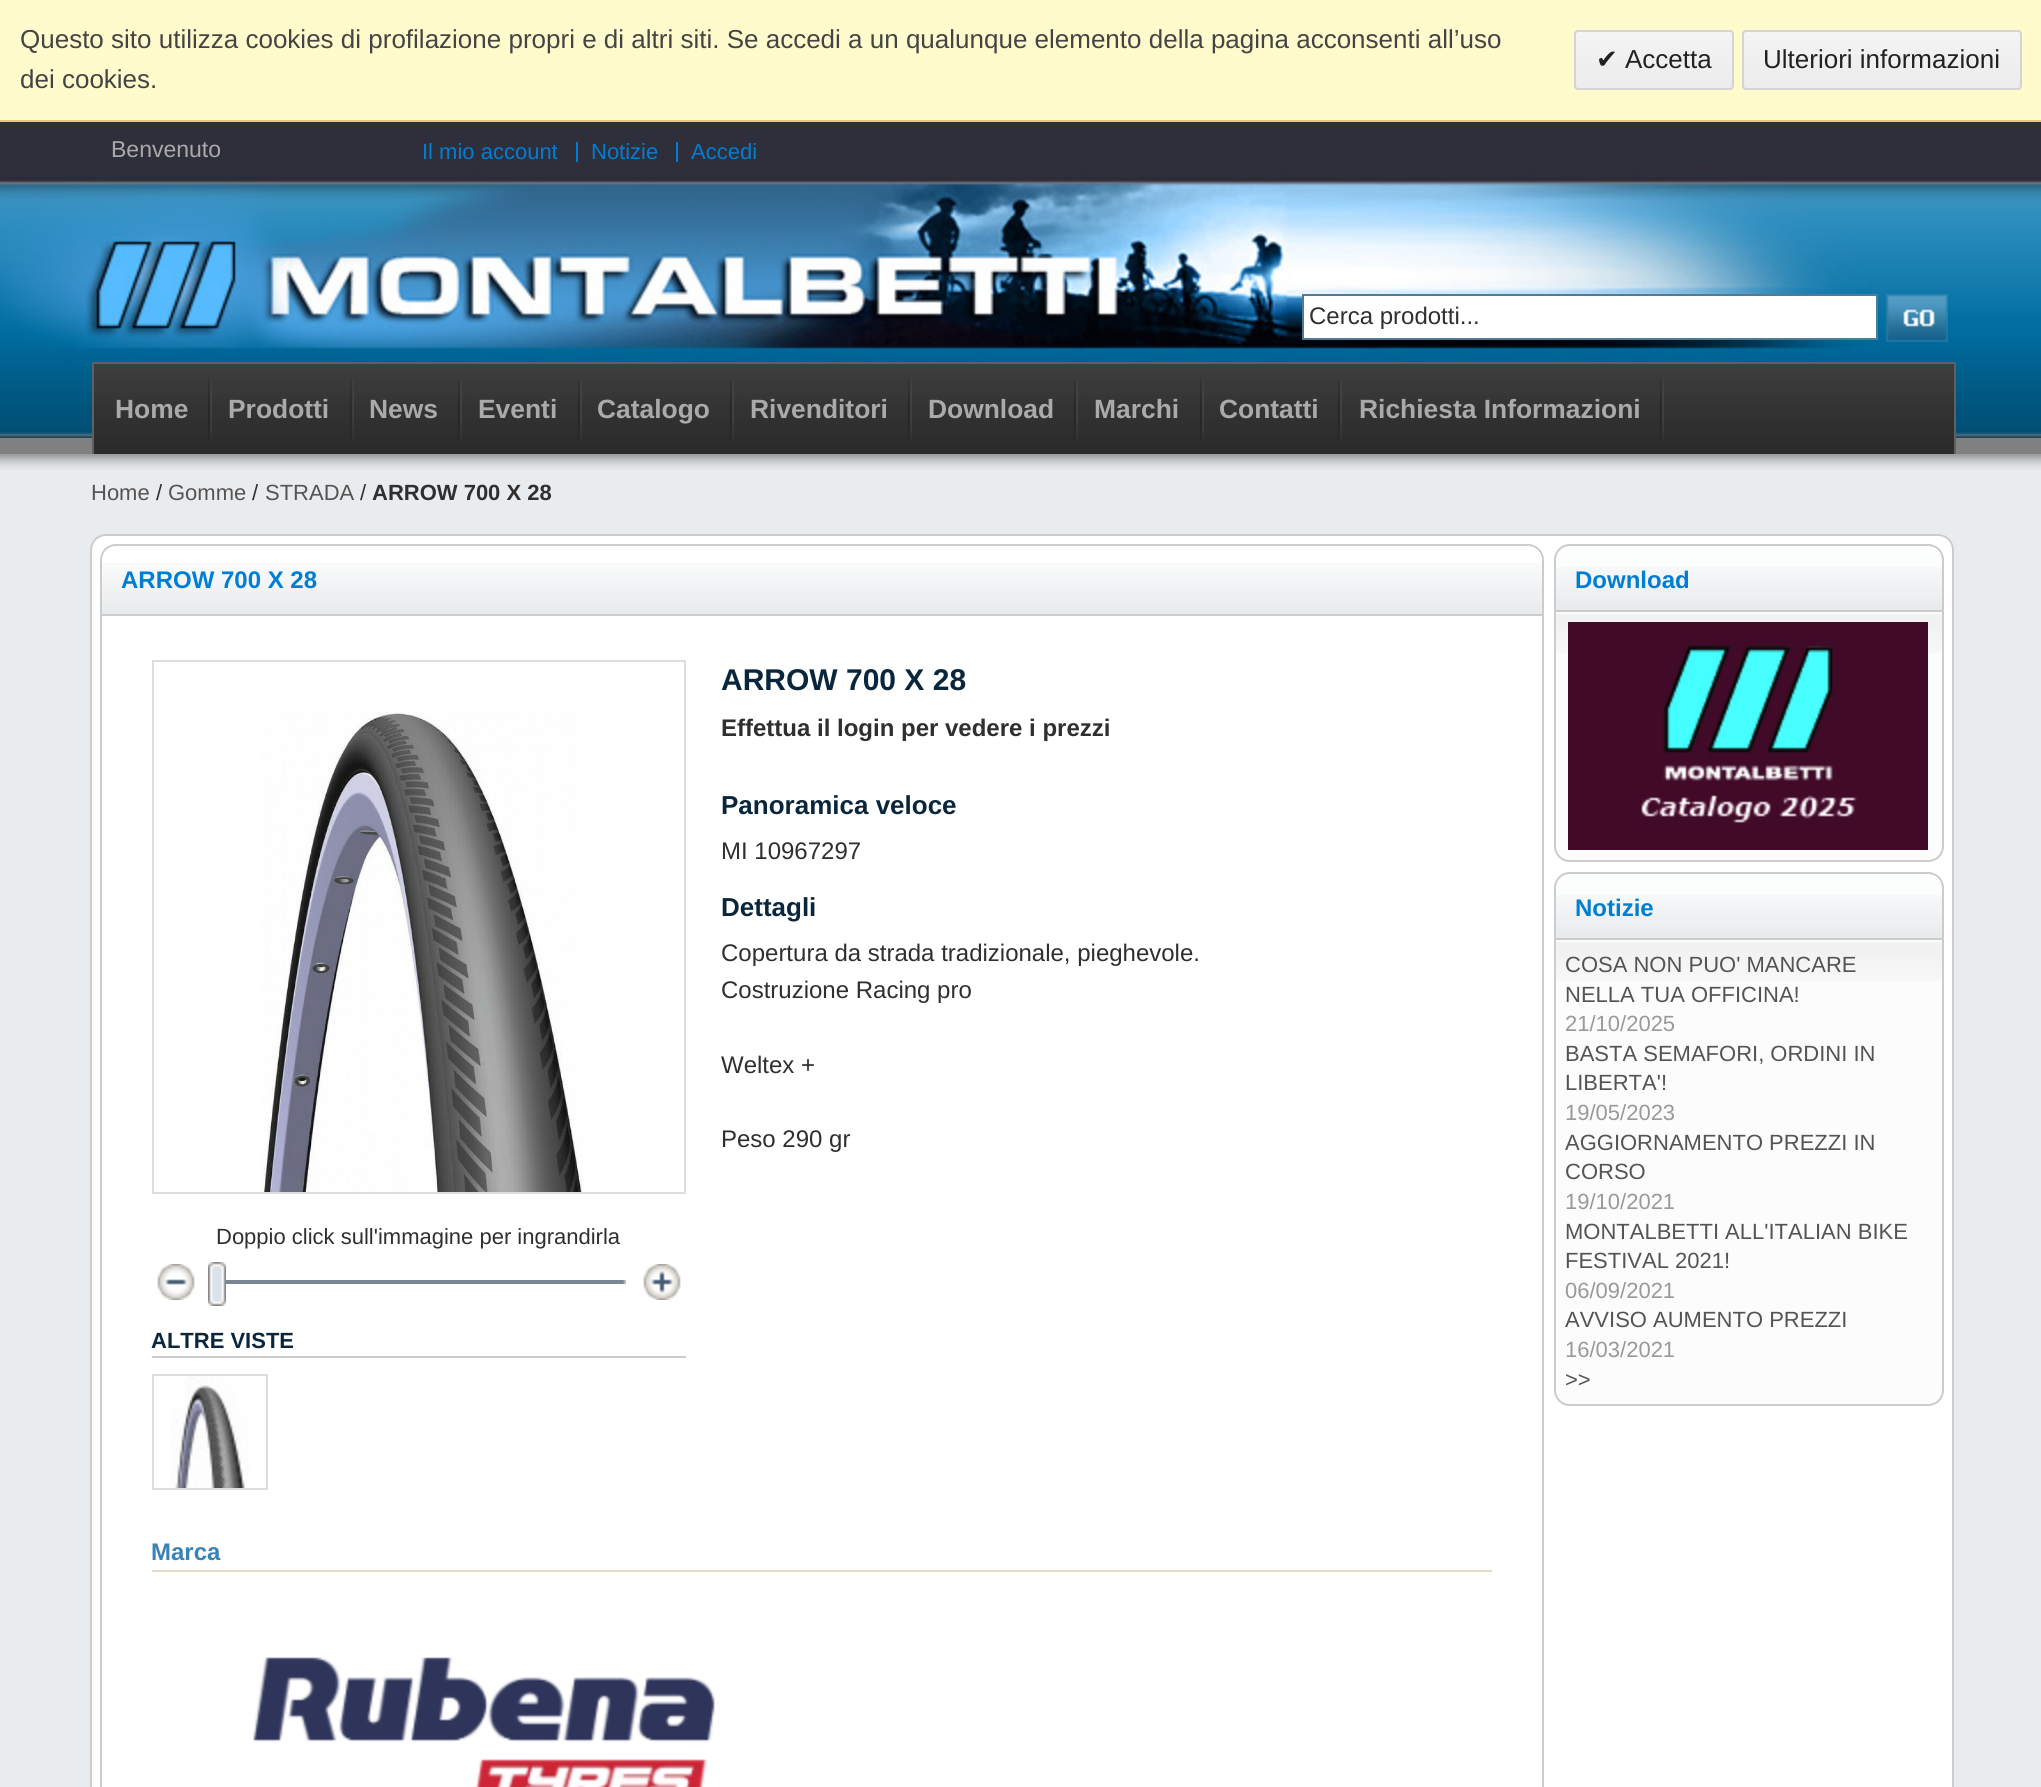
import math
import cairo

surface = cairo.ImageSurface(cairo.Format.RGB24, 2041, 1787)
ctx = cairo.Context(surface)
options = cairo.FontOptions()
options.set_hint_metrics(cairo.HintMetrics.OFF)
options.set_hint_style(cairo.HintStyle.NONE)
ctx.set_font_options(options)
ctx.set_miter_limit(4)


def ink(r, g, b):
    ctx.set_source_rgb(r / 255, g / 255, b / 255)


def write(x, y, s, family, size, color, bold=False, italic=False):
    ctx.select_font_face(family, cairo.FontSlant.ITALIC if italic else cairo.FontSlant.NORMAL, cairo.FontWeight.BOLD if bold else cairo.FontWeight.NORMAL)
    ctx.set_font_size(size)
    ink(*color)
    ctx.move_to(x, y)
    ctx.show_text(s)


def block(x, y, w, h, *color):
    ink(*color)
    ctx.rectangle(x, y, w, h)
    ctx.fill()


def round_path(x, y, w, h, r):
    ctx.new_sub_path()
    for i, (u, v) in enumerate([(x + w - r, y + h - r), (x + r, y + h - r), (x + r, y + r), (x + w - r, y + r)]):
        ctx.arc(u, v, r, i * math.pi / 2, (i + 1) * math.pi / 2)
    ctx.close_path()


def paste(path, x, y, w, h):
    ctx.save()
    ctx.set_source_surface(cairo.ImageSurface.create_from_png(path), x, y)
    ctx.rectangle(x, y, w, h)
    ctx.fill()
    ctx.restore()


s1 = dict(family="Liberation Sans", size=26, color=(68, 68, 68))
s2 = dict(family="DejaVu Sans", size=26, color=(34, 34, 34))
s3 = dict(family="Liberation Sans", size=26, color=(34, 34, 34))
s4 = dict(family="Liberation Sans", size=23, color=(170, 170, 170))
s5 = dict(family="Liberation Sans", size=22, color=(0, 126, 211))
s6 = dict(family="Liberation Sans", size=24, color=(47, 47, 47))
s7 = dict(family="Liberation Sans", size=26.4, color=(170, 170, 170), bold=True)
s8 = dict(family="Liberation Sans", size=22, color=(85, 84, 82))
s9 = dict(family="Liberation Sans", size=22, color=(47, 47, 47))
s10 = dict(family="Liberation Sans", size=22, color=(47, 47, 47), bold=True)
s11 = dict(family="Liberation Sans", size=24, color=(0, 126, 211), bold=True)
s12 = dict(family="Liberation Sans", size=30, color=(10, 38, 60), bold=True)
s13 = dict(family="Liberation Sans", size=24, color=(47, 47, 47), bold=True)
s14 = dict(family="Liberation Sans", size=26, color=(10, 38, 60), bold=True)
s15 = dict(family="Liberation Sans", size=22, color=(10, 38, 60), bold=True)
s16 = dict(family="Liberation Sans", size=24, color=(58, 131, 180), bold=True)
s17 = dict(family="Liberation Sans", size=22, color=(153, 153, 153))

ink(128, 128, 128)
ctx.paint()
block(0, 0, 2041, 120, 255, 251, 205)
block(0, 120, 2041, 2, 226, 205, 123)
write(20, 48, "Questo sito utilizza cookies di profilazione propri e di altri siti. Se accedi a un qualunque elemento della pagina acconsenti all’uso", **s1)
write(20, 88, "dei cookies.", **s1)
ctx.save()
round_path(1574, 30, 160, 60, 4)
ctx.clip()
gradient = cairo.LinearGradient(1654, 32, 1654, 88)
gradient.add_color_stop_rgba(0, 0.957, 0.957, 0.957, 1)
gradient.add_color_stop_rgba(1, 0.925, 0.925, 0.925, 1)
ctx.set_source(gradient)
ctx.rectangle(1574, 32, 160, 56)
ctx.fill()
ctx.restore()
round_path(1575, 31, 158, 58, 3)
ink(212, 212, 212)
ctx.stroke()
write(1596, 68, "✔", **s2)
write(1625, 68, "Accetta", **s3)
ctx.save()
round_path(1742, 30, 280, 60, 4)
ctx.clip()
gradient = cairo.LinearGradient(1882, 32, 1882, 88)
gradient.add_color_stop_rgba(0, 0.957, 0.957, 0.957, 1)
gradient.add_color_stop_rgba(1, 0.925, 0.925, 0.925, 1)
ctx.set_source(gradient)
ctx.rectangle(1742, 32, 280, 56)
ctx.fill()
ctx.restore()
round_path(1743, 31, 278, 58, 3)
ink(212, 212, 212)
ctx.stroke()
write(1763, 68, "Ulteriori informazioni", **s3)
paste("pic1.png", 0, 122, 2041, 316)
write(111, 157, "Benvenuto", **s4)
write(422, 159, "Il mio account", **s5)
block(576, 142, 2, 20, 0, 126, 211)
write(591, 159, "Notizie", **s5)
block(676, 142, 2, 20, 0, 126, 211)
write(691, 159, "Accedi", **s5)
ink(255, 255, 255)
ctx.rectangle(1303, 295, 574, 44)
ctx.fill_preserve()
ink(81, 123, 146)
ctx.stroke()
write(1309, 324, "Cerca prodotti...", **s6)
paste("pic2.png", 1886, 294, 62, 48)
paste("pic3.png", 94, 364, 1860, 90)
block(92, 362, 1864, 2, 96, 96, 96)
block(1954, 362, 2, 92, 96, 96, 96)
block(92, 362, 2, 92, 96, 96, 96)
paste("pic4.png", 208, 379, 4, 62)
write(115, 418, "Home", **s7)
paste("pic4.png", 350, 379, 4, 62)
write(228, 418, "Prodotti", **s7)
paste("pic4.png", 458, 379, 4, 62)
write(369, 418, "News", **s7)
paste("pic4.png", 578, 379, 4, 62)
write(478, 418, "Eventi", **s7)
paste("pic4.png", 730, 379, 4, 62)
write(597, 418, "Catalogo", **s7)
paste("pic4.png", 908, 379, 4, 62)
write(750, 418, "Rivenditori", **s7)
paste("pic4.png", 1074, 379, 4, 62)
write(928, 418, "Download", **s7)
paste("pic4.png", 1200, 379, 4, 62)
write(1094, 418, "Marchi", **s7)
paste("pic4.png", 1338, 379, 4, 62)
write(1219, 418, "Contatti", **s7)
paste("pic4.png", 1660, 379, 4, 62)
write(1359, 418, "Richiesta Informazioni", **s7)
block(0, 470, 2041, 1317, 233, 236, 238)
paste("pic5.png", 0, 454, 2041, 16)
write(91, 500, "Home", **s8)
write(156, 500, "/", **s9)
write(168, 500, "Gomme", **s8)
write(252, 500, "/", **s9)
write(265, 500, "STRADA", **s8)
write(360, 500, "/", **s9)
write(372, 500, "ARROW 700 X 28", **s10)
ink(255, 255, 255)
round_path(91, 535, 1862, 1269, 15)
ctx.fill_preserve()
ink(204, 204, 204)
ctx.stroke()
round_path(101, 545, 1442, 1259, 15)
ctx.stroke()
paste("pic6.png", 102, 563, 1440, 51)
block(102, 614, 1440, 2, 204, 204, 204)
write(121, 588, "ARROW 700 X 28", **s11)
write(721, 690, "ARROW 700 X 28", **s12)
write(721, 736, "Effettua il login per vedere i prezzi", **s13)
write(721, 814, "Panoramica veloce", **s14)
write(721, 859, "MI 10967297", **s6)
write(721, 916, "Dettagli", **s14)
write(721, 961, "Copertura da strada tradizionale, pieghevole.", **s6)
write(721, 998, "Costruzione Racing pro", **s6)
write(721, 1073, "Weltex +", **s6)
write(721, 1147, "Peso 290 gr", **s6)
ctx.rectangle(153, 661, 532, 532)
ink(221, 221, 221)
ctx.stroke()
paste("pic7.png", 262, 712, 321, 480)
write(216, 1244, "Doppio click sull'immagine per ingrandirla", **s9)
paste("pic8.png", 226, 1280, 400, 4)
paste("pic9.png", 157, 1264, 38, 36)
paste("pic10.png", 208, 1262, 18, 44)
paste("pic11.png", 643, 1264, 38, 36)
block(152, 1356, 534, 2, 204, 204, 204)
write(151, 1348, "ALTRE VISTE", **s15)
ctx.rectangle(153, 1375, 114, 114)
ink(221, 221, 221)
ctx.stroke()
paste("pic12.png", 170, 1376, 79, 112)
block(152, 1570, 1340, 2, 229, 220, 195)
write(151, 1560, "Marca", **s16)
paste("pic13.png", 253, 1657, 462, 130)
ink(252, 253, 253)
ctx.new_path()
ctx.move_to(1570, 544)
ctx.line_to(1928, 544)
ctx.curve_to(1937, 544, 1944, 551, 1944, 560)
ctx.line_to(1944, 612)
ctx.line_to(1554, 612)
ctx.line_to(1554, 560)
ctx.curve_to(1554, 551, 1561, 544, 1570, 544)
ctx.close_path()
ctx.fill()
paste("pic14.png", 1556, 567, 386, 43)
ctx.new_path()
ctx.move_to(1570, 545)
ctx.line_to(1928, 545)
ctx.curve_to(1936.5, 545, 1943, 551.5, 1943, 560)
ctx.line_to(1943, 611)
ctx.line_to(1555, 611)
ctx.line_to(1555, 560)
ctx.curve_to(1555, 551.5, 1561.5, 545, 1570, 545)
ctx.close_path()
ink(204, 204, 204)
ctx.stroke()
write(1575, 588, "Download", **s11)
ink(252, 252, 252)
ctx.new_path()
ctx.move_to(1554, 612)
ctx.line_to(1944, 612)
ctx.line_to(1944, 846)
ctx.curve_to(1944, 855, 1937, 862, 1928, 862)
ctx.line_to(1570, 862)
ctx.curve_to(1561, 862, 1554, 855, 1554, 846)
ctx.close_path()
ctx.fill()
paste("pic15.png", 1556, 614, 386, 39)
ink(204, 204, 204)
ctx.set_fill_rule(cairo.FillRule.EVEN_ODD)
ctx.new_path()
ctx.move_to(1554, 612)
ctx.line_to(1944, 612)
ctx.line_to(1944, 846)
ctx.curve_to(1944, 855, 1937, 862, 1928, 862)
ctx.line_to(1570, 862)
ctx.curve_to(1561, 862, 1554, 855, 1554, 846)
ctx.close_path()
ctx.move_to(1556, 612)
ctx.line_to(1942, 612)
ctx.line_to(1942, 846)
ctx.curve_to(1942, 854, 1936, 860, 1928, 860)
ctx.line_to(1570, 860)
ctx.curve_to(1562, 860, 1556, 854, 1556, 846)
ctx.close_path()
ctx.fill()
paste("pic16.png", 1568, 622, 360, 228)
ink(252, 253, 253)
ctx.new_path()
ctx.move_to(1570, 872)
ctx.line_to(1928, 872)
ctx.curve_to(1937, 872, 1944, 879, 1944, 888)
ctx.line_to(1944, 940)
ctx.line_to(1554, 940)
ctx.line_to(1554, 888)
ctx.curve_to(1554, 879, 1561, 872, 1570, 872)
ctx.close_path()
ctx.fill()
paste("pic14.png", 1556, 895, 386, 43)
ctx.new_path()
ctx.move_to(1570, 873)
ctx.line_to(1928, 873)
ctx.curve_to(1936.5, 873, 1943, 879.5, 1943, 888)
ctx.line_to(1943, 939)
ctx.line_to(1555, 939)
ctx.line_to(1555, 888)
ctx.curve_to(1555, 879.5, 1561.5, 873, 1570, 873)
ctx.close_path()
ink(204, 204, 204)
ctx.stroke()
write(1575, 916, "Notizie", **s11)
ink(252, 252, 252)
ctx.new_path()
ctx.move_to(1554, 940)
ctx.line_to(1944, 940)
ctx.line_to(1944, 1390)
ctx.curve_to(1944, 1399, 1937, 1406, 1928, 1406)
ctx.line_to(1570, 1406)
ctx.curve_to(1561, 1406, 1554, 1399, 1554, 1390)
ctx.close_path()
ctx.fill()
paste("pic15.png", 1556, 942, 386, 39)
ink(204, 204, 204)
ctx.new_path()
ctx.move_to(1554, 940)
ctx.line_to(1944, 940)
ctx.line_to(1944, 1390)
ctx.curve_to(1944, 1399, 1937, 1406, 1928, 1406)
ctx.line_to(1570, 1406)
ctx.curve_to(1561, 1406, 1554, 1399, 1554, 1390)
ctx.close_path()
ctx.move_to(1556, 940)
ctx.line_to(1942, 940)
ctx.line_to(1942, 1390)
ctx.curve_to(1942, 1398, 1936, 1404, 1928, 1404)
ctx.line_to(1570, 1404)
ctx.curve_to(1562, 1404, 1556, 1398, 1556, 1390)
ctx.close_path()
ctx.fill()
write(1565, 972, "COSA NON PUO' MANCARE", **s8)
write(1565, 1002, "NELLA TUA OFFICINA!", **s8)
write(1565, 1031, "21/10/2025", **s17)
write(1565, 1061, "BASTA SEMAFORI, ORDINI IN", **s8)
write(1565, 1090, "LIBERTA'!", **s8)
write(1565, 1120, "19/05/2023", **s17)
write(1565, 1150, "AGGIORNAMENTO PREZZI IN", **s8)
write(1565, 1179, "CORSO", **s8)
write(1565, 1209, "19/10/2021", **s17)
write(1565, 1239, "MONTALBETTI ALL'ITALIAN BIKE", **s8)
write(1565, 1268, "FESTIVAL 2021!", **s8)
write(1565, 1298, "06/09/2021", **s17)
write(1565, 1327, "AVVISO AUMENTO PREZZI", **s8)
write(1565, 1357, "16/03/2021", **s17)
write(1565, 1387, ">>", **s8)
surface.write_to_png("screenshot.png")
